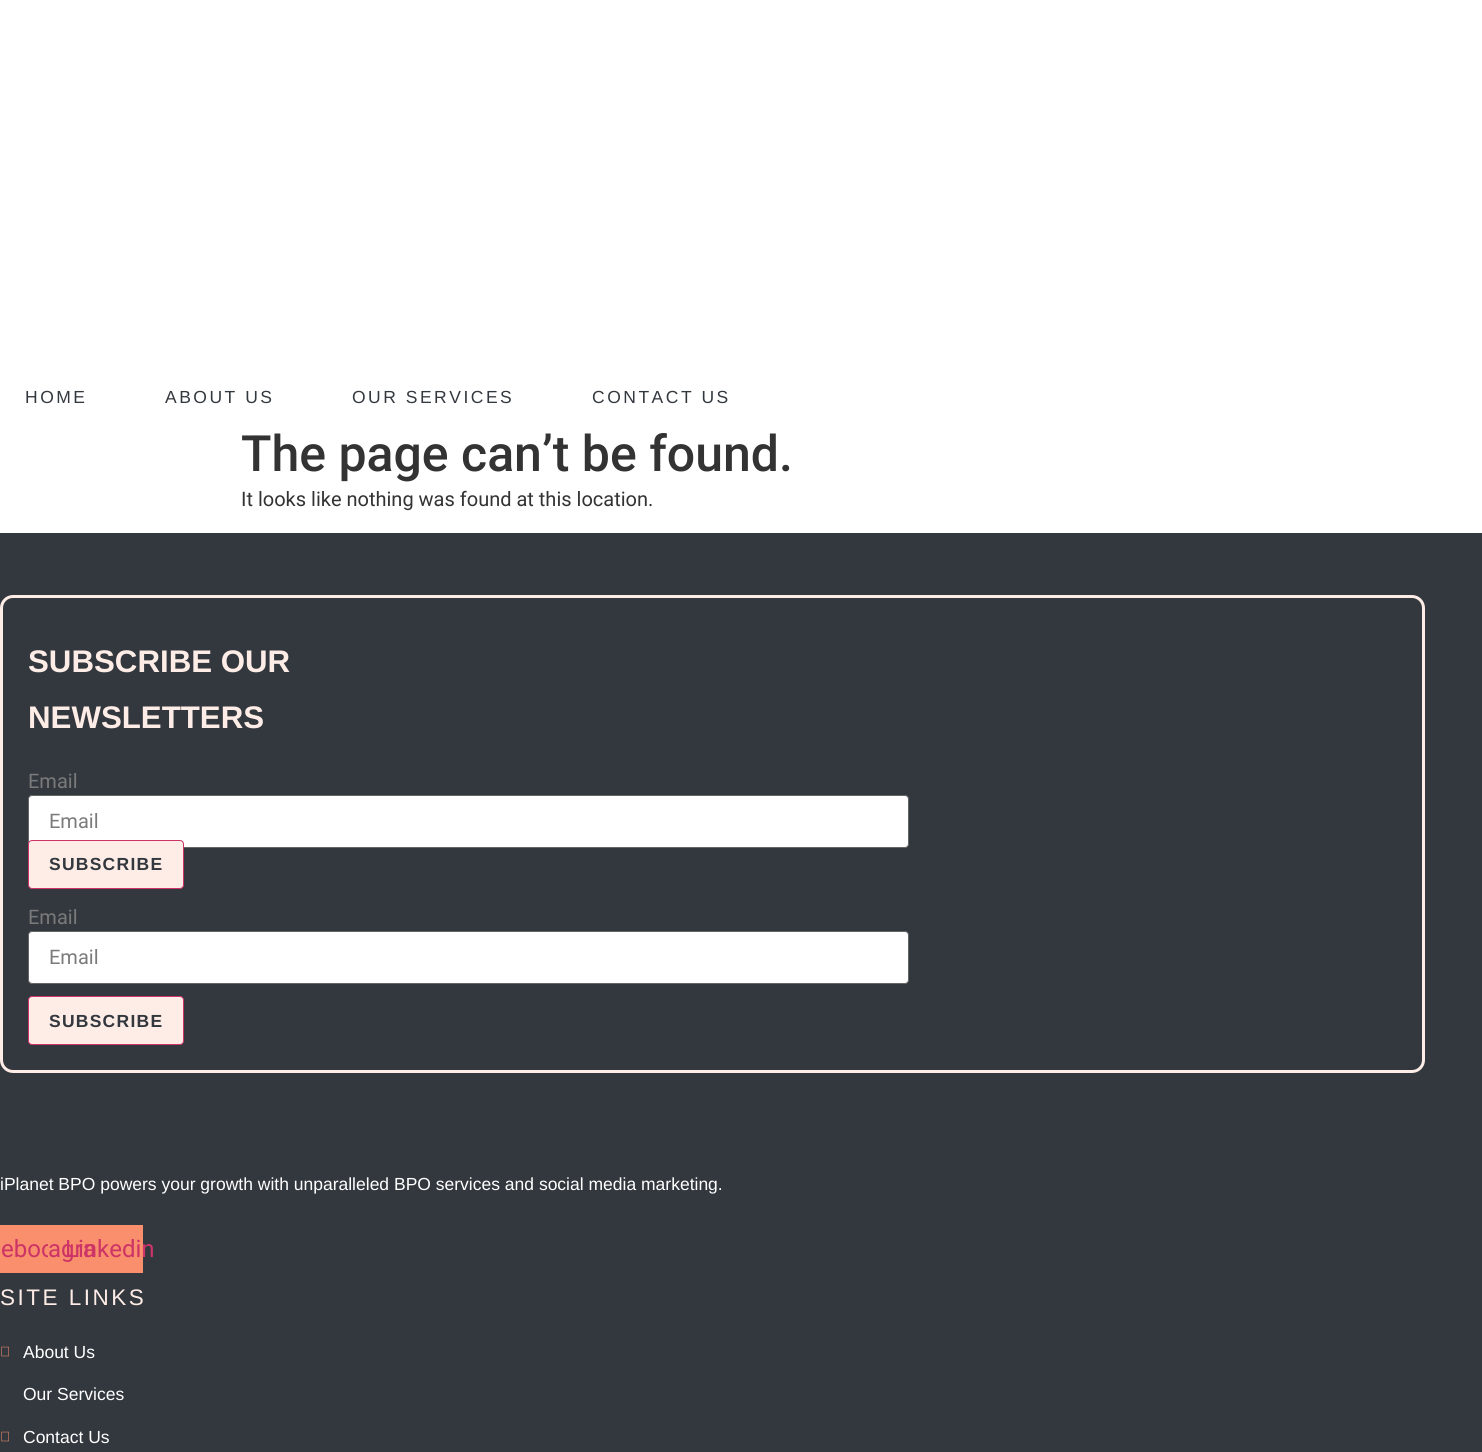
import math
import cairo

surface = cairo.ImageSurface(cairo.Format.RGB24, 1482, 1452)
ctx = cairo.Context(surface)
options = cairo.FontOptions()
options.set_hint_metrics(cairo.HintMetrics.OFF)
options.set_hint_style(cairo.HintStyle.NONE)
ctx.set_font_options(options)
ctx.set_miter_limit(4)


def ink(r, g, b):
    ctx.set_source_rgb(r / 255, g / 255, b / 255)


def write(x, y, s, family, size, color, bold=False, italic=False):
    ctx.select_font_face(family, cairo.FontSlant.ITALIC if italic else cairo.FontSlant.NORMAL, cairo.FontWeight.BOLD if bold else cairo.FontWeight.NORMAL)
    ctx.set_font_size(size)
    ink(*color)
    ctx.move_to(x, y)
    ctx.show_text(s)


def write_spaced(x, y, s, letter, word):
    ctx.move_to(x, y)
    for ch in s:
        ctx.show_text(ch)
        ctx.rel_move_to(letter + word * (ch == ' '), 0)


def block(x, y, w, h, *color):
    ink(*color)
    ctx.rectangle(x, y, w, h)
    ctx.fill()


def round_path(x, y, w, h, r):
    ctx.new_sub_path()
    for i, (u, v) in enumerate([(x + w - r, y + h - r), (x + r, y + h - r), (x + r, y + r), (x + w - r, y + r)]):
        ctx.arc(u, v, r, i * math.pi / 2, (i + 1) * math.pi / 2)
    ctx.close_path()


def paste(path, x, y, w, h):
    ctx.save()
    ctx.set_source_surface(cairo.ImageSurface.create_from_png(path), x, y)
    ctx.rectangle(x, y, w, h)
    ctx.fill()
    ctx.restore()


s1 = dict(family="Roboto Medium", size=50, color=(51, 51, 51))
s2 = dict(family="Roboto", size=20, color=(51, 51, 51))
s3 = dict(family="Liberation Sans", size=31.25, color=(254, 236, 230), bold=True)
s4 = dict(family="Roboto", size=20, color=(122, 122, 122))
s5 = dict(family="Liberation Sans", size=17.5, color=(255, 255, 255))
s6 = dict(family="Roboto", size=24, color=(204, 51, 102))

ink(255, 255, 255)
ctx.paint()
ctx.select_font_face("Liberation Sans")
ctx.set_font_size(17.5)
ink(51, 56, 63)
write_spaced(25, 403, "HOME", 2.5, 0)
write_spaced(165, 403, "ABOUT US", 2.5, 0)
write_spaced(352, 403, "OUR SERVICES", 2.5, 0)
write_spaced(592, 403, "CONTACT US", 2.5, 0)
write(241, 471, "The page can’t be found.", **s1)
write(241, 506, "It looks like nothing was found at this location.", **s2)
block(0, 533, 1482, 919, 51, 56, 63)
round_path(1.5, 596.5, 1422, 475, 11.5)
ink(254, 236, 230)
ctx.set_line_width(3)
ctx.stroke()
write(28, 672, "SUBSCRIBE OUR", **s3)
write(28, 728, "NEWSLETTERS", **s3)
write(28, 788, "Email", **s4)
ink(255, 255, 255)
round_path(28.5, 795.5, 880, 52, 3.5)
ctx.fill_preserve()
ink(102, 102, 102)
ctx.set_line_width(1)
ctx.stroke()
write(49, 828, "Email", **s4)
ink(254, 236, 230)
round_path(28.5, 840.5, 155, 48, 3.5)
ctx.fill_preserve()
ink(204, 51, 102)
ctx.stroke()
ctx.select_font_face("Liberation Sans", cairo.FontSlant.NORMAL, cairo.FontWeight.BOLD)
ctx.set_font_size(17.5)
ink(51, 56, 63)
write_spaced(49, 870, "SUBSCRIBE", 1.25, 0)
write(28, 924, "Email", **s4)
ink(255, 255, 255)
round_path(28.5, 931.5, 880, 52, 3.5)
ctx.fill_preserve()
ink(102, 102, 102)
ctx.stroke()
write(49, 964, "Email", **s4)
ink(254, 236, 230)
round_path(28.5, 996.5, 155, 48, 3.5)
ctx.fill_preserve()
ink(204, 51, 102)
ctx.stroke()
ctx.select_font_face("Liberation Sans", cairo.FontSlant.NORMAL, cairo.FontWeight.BOLD)
ctx.set_font_size(17.5)
ink(51, 56, 63)
write_spaced(49, 1027, "SUBSCRIBE", 1.25, 0)
write(0, 1190, "iPlanet BPO powers your growth with unparalleled BPO services and social media marketing.", **s5)
block(0, 1225, 48, 48, 249, 143, 108)
write(1, 1257, "eboo", **s6)
block(48, 1225, 95, 48, 249, 143, 108)
write(48, 1257, "agra", **s6)
write(65, 1257, "Linkedin", **s6)
ctx.select_font_face("Liberation Sans")
ctx.set_font_size(22.5)
ink(254, 236, 230)
write_spaced(0, 1305, "SITE LINKS", 2.5, 0)
paste("pic1.png", 1, 1346, 8, 11)
write(23, 1358, "About Us", **s5)
write(23, 1400, "Our Services", **s5)
paste("pic1.png", 1, 1431, 8, 11)
write(23, 1443, "Contact Us", **s5)
surface.write_to_png("screenshot.png")
